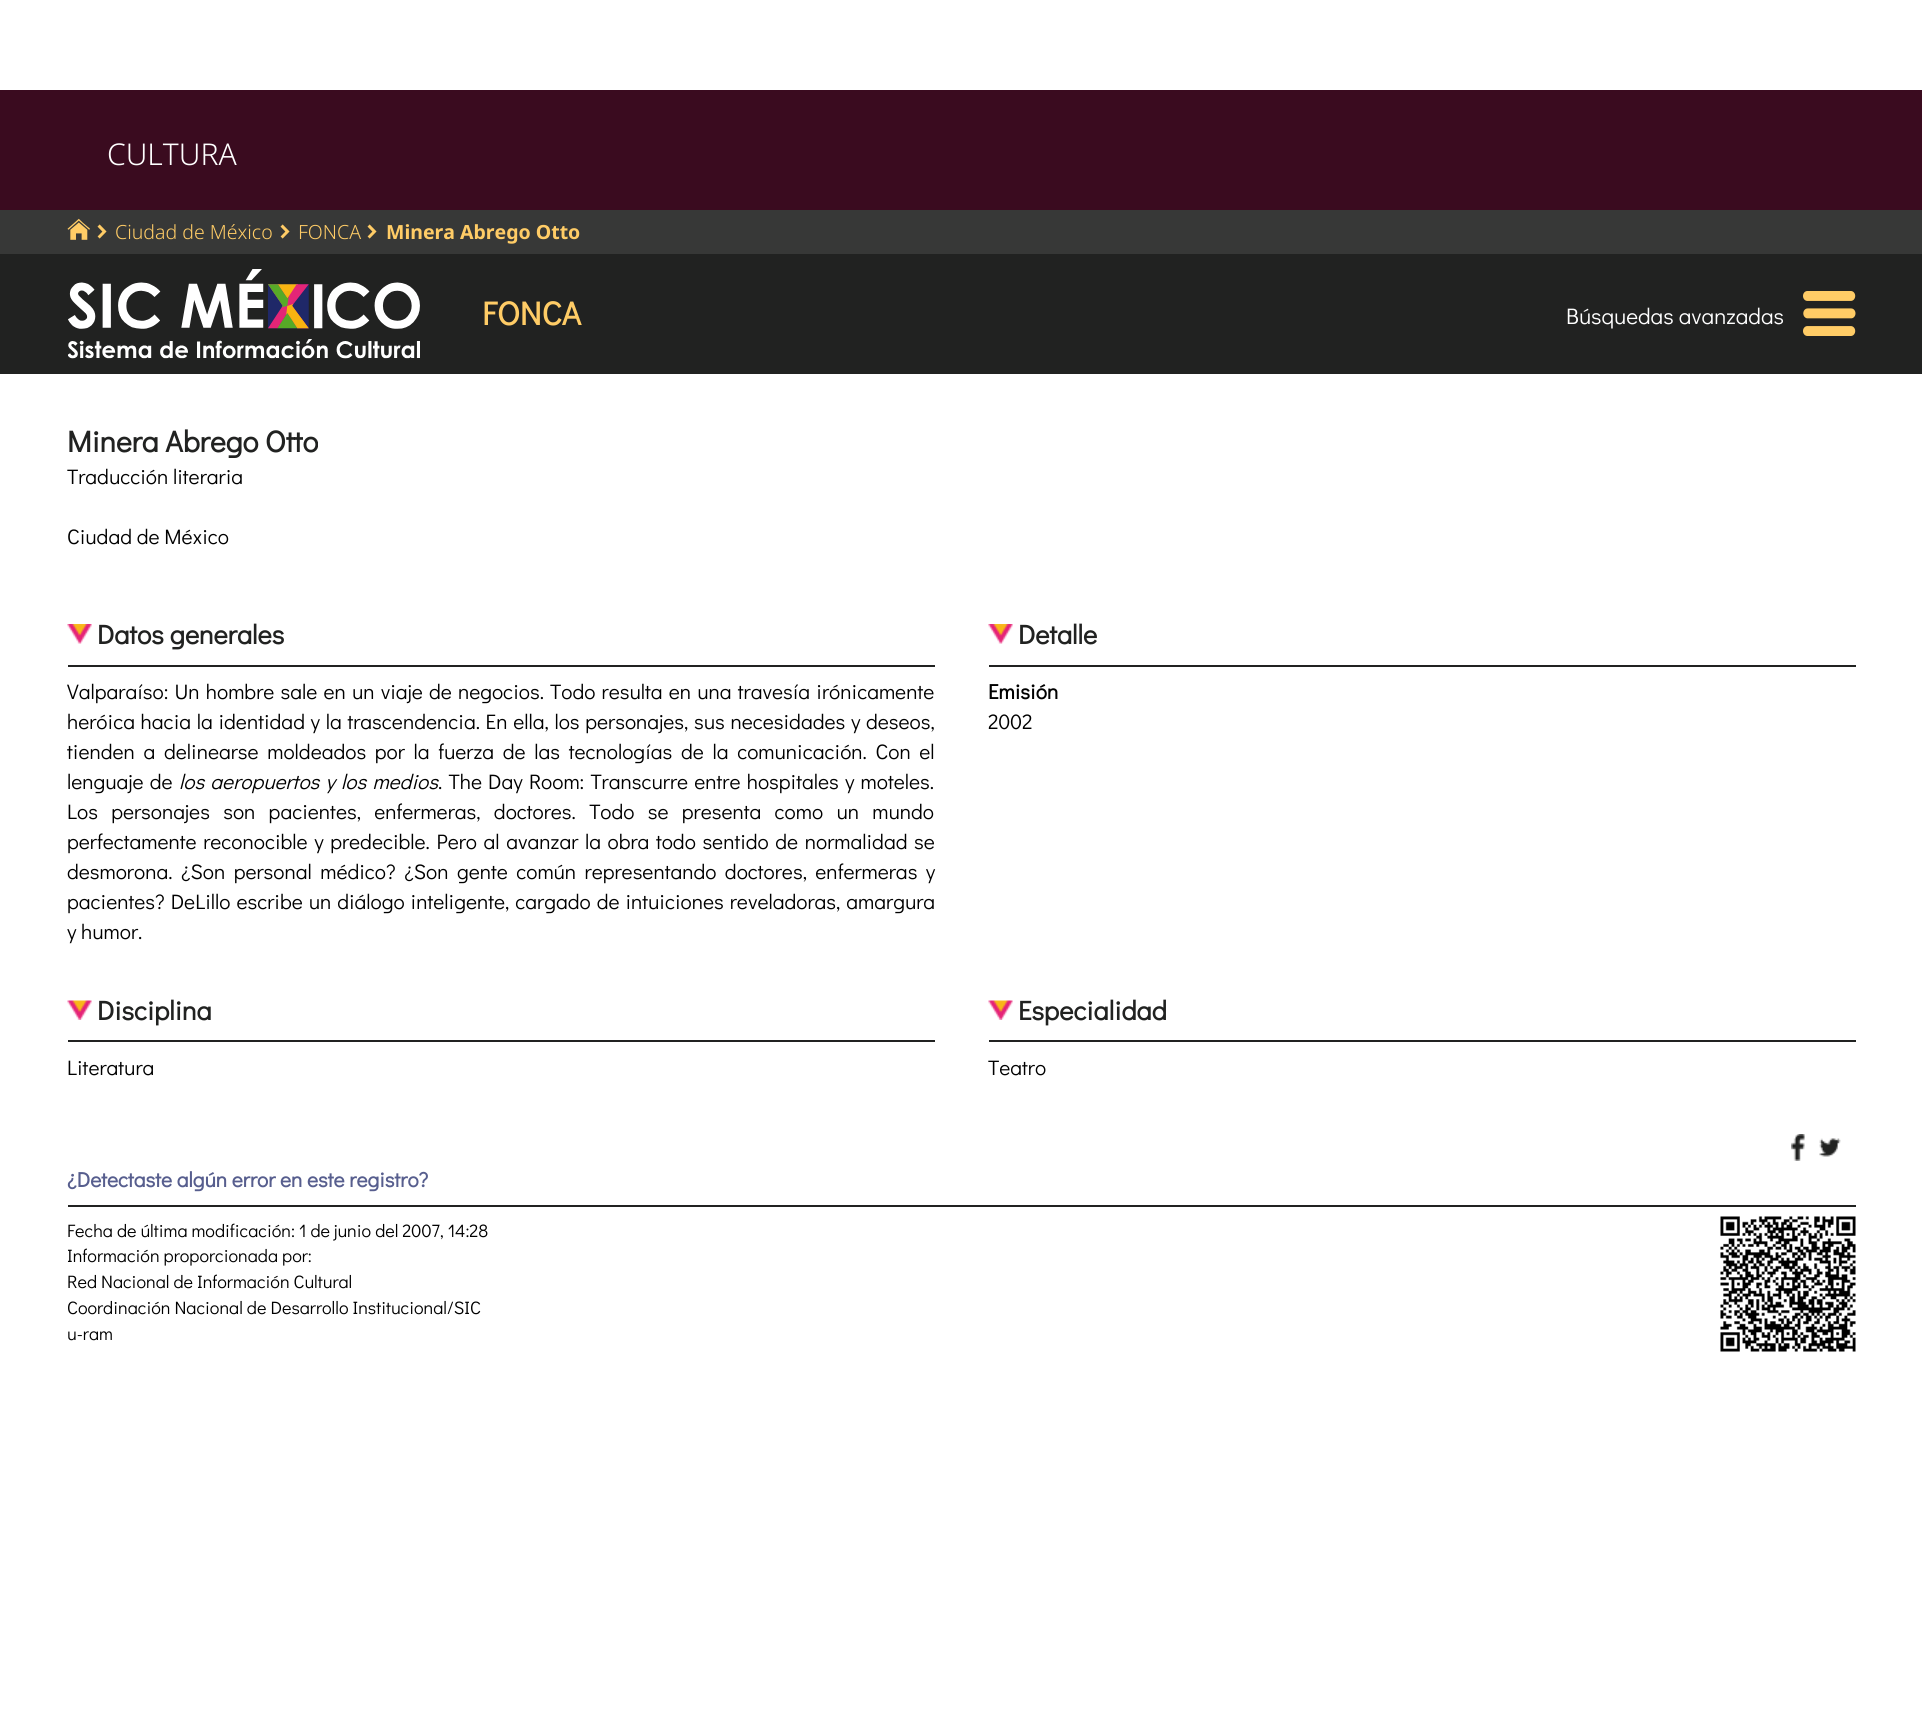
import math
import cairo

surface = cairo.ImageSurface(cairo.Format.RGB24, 1922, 1722)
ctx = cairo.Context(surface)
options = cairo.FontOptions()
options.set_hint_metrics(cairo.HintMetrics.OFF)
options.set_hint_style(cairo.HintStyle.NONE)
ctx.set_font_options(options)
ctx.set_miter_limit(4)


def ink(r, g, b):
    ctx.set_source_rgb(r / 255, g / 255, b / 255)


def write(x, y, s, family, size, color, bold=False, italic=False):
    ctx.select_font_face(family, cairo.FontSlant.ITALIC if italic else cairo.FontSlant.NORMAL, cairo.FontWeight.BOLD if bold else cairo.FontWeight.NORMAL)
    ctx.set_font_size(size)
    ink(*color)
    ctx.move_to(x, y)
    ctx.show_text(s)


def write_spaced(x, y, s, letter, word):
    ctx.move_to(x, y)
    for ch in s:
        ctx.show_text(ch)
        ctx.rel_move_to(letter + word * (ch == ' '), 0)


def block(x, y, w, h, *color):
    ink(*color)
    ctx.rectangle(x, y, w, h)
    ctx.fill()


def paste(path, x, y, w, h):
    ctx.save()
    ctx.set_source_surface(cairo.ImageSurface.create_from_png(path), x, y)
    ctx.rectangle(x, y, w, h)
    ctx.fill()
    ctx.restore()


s1 = dict(family="Noto Sans Light", size=30, color=(255, 255, 255))
s2 = dict(family="Noto Sans Light", size=19.5, color=(255, 204, 102))
s3 = dict(family="Noto Sans", size=19.5, color=(255, 204, 102), bold=True)
s4 = dict(family="Didact Gothic", size=33, color=(255, 204, 102), bold=True)
s5 = dict(family="Didact Gothic", size=22.5, color=(255, 255, 255))
s6 = dict(family="Didact Gothic", size=30, color=(33, 34, 33), bold=True)
s7 = dict(family="Didact Gothic", size=21, color=(0, 0, 0))
s8 = dict(family="Didact Gothic", size=27, color=(33, 34, 33), bold=True)
s9 = dict(family="Didact Gothic", size=21, color=(0, 0, 0), bold=True)
s10 = dict(family="Didact Gothic", size=21, color=(87, 94, 142), bold=True)
s11 = dict(family="Didact Gothic", size=18, color=(0, 0, 0))

ink(255, 255, 255)
ctx.paint()
block(0, 90, 1922, 120, 58, 11, 31)
write(107, 165, "CULTURA", **s1)
block(0, 210, 1922, 44, 55, 56, 55)
paste("pic1.png", 67, 218, 23, 22)
paste("pic2.png", 97, 224, 10, 15)
write(115, 239, "Ciudad de México", **s2)
paste("pic2.png", 280, 224, 10, 15)
write(298, 239, "FONCA", **s2)
paste("pic2.png", 367, 224, 10, 15)
write(386, 239, "Minera Abrego Otto", **s3)
block(0, 254, 1922, 120, 33, 34, 33)
paste("pic3.png", 68, 269, 352, 90)
write(482, 325, "FONCA", **s4)
write(1566, 324, "Búsquedas avanzadas", **s5)
paste("pic4.png", 1803, 291, 53, 45)
write(67, 452, "Minera Abrego Otto", **s6)
write(67, 484, "Traducción literaria", **s7)
write(67, 544, "Ciudad de México", **s7)
paste("pic5.png", 67, 624, 25, 20)
write(97, 644, "Datos generales", **s8)
block(68, 665, 867, 2, 33, 34, 33)
ctx.select_font_face("Didact Gothic")
ctx.set_font_size(21)
ink(0, 0, 0)
write_spaced(67, 699, "Valparaíso: Un hombre sale en un viaje de negocios. Todo resulta en una travesía irónicamente", 0, 1.5)
write_spaced(67, 729, "heróica hacia la identidad y la trascendencia. En ella, los personajes, sus necesidades y deseos,", 0, 1)
write_spaced(67, 759, "tienden a delinearse moldeados por la fuerza de las tecnologías de la comunicación. Con el", 0, 4)
write_spaced(67, 789, "lenguaje de", 0, 1.5)
ctx.select_font_face("Didact Gothic", cairo.FontSlant.ITALIC)
write_spaced(179, 789, "los aeropuertos y los medios", 0, 1.5)
ctx.select_font_face("Didact Gothic")
write_spaced(438, 789, ". The Day Room: Transcurre entre hospitales y moteles.", 0, 1.5)
write_spaced(67, 819, "Los personajes son pacientes, enfermeras, doctores. Todo se presenta como un mundo", 0, 8.6)
write_spaced(67, 849, "perfectamente reconocible y predecible. Pero al avanzar la obra todo sentido de normalidad se", 0, 1.9)
write_spaced(67, 879, "desmorona. ¿Son personal médico? ¿Son gente común representando doctores, enfermeras y", 0, 3.75)
write_spaced(67, 909, "pacientes? DeLillo escribe un diálogo inteligente, cargado de intuiciones reveladoras, amargura", 0, 1.25)
write(67, 939, "y humor.", **s7)
paste("pic5.png", 988, 624, 25, 20)
write(1018, 644, "Detalle", **s8)
block(989, 665, 867, 2, 33, 34, 33)
write(988, 699, "Emisión", **s9)
write(988, 729, "2002", **s7)
paste("pic6.png", 67, 1000, 25, 20)
write(97, 1020, "Disciplina", **s8)
block(68, 1040, 867, 2, 33, 34, 33)
write(67, 1075, "Literatura", **s7)
paste("pic6.png", 988, 1000, 25, 20)
write(1018, 1020, "Especialidad", **s8)
block(989, 1040, 867, 2, 33, 34, 33)
write(988, 1075, "Teatro", **s7)
paste("pic7.png", 1791, 1134, 14, 27)
paste("pic8.png", 1819, 1138, 22, 19)
write(67, 1187, "¿Detectaste algún error en este registro?", **s10)
block(68, 1205, 1788, 2, 33, 34, 33)
write(67, 1237, "Fecha de última modificación: 1 de junio del 2007, 14:28", **s11)
write(67, 1262, "Información proporcionada por:", **s11)
write(67, 1288, "Red Nacional de Información Cultural", **s11)
write(67, 1314, "Coordinación Nacional de Desarrollo Institucional/SIC", **s11)
write(67, 1340, "u-ram", **s11)
paste("pic9.png", 1720, 1216, 136, 136)
surface.write_to_png("screenshot.png")
